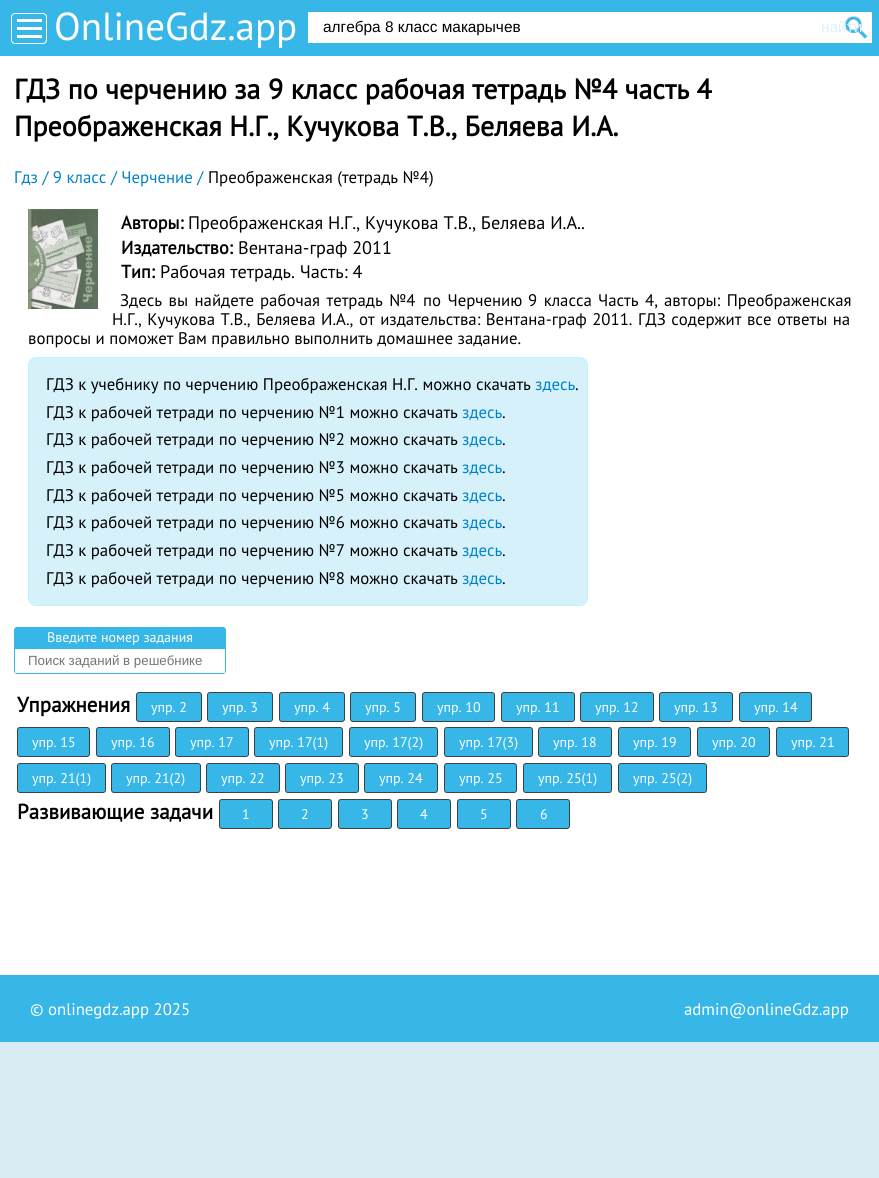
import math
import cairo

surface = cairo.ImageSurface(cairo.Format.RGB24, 879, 1178)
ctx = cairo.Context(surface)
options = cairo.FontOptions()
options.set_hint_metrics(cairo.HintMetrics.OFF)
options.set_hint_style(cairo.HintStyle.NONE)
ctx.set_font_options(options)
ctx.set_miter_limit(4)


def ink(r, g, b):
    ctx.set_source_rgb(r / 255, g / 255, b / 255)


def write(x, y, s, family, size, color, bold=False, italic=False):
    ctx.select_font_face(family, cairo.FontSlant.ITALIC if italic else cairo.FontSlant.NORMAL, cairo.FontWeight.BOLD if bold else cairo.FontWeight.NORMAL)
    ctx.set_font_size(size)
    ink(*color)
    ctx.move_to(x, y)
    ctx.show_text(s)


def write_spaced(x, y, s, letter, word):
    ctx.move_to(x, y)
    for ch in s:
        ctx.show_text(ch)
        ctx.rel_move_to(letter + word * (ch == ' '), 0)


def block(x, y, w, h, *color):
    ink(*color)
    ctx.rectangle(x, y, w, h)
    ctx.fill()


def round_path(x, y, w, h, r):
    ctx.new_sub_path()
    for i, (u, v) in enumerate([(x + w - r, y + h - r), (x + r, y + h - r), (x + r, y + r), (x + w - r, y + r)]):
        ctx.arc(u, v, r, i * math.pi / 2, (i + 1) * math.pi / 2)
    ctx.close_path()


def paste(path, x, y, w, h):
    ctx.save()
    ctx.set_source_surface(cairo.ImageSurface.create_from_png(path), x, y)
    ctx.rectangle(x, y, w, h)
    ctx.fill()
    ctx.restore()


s1 = dict(family="PT Sans", size=39, color=(255, 255, 255))
s2 = dict(family="Liberation Sans", size=15.4, color=(0, 0, 0))
s3 = dict(family="Liberation Sans", size=15.4, color=(221, 242, 250))
s4 = dict(family="PT Sans", size=28, color=(0, 0, 0), bold=True)
s5 = dict(family="PT Sans", size=16.8, color=(0, 130, 202))
s6 = dict(family="PT Sans", size=16.8, color=(0, 0, 0))
s7 = dict(family="PT Sans", size=18.2, color=(0, 0, 0), bold=True)
s8 = dict(family="PT Sans", size=18.2, color=(0, 0, 0))
s9 = dict(family="PT Sans", size=14, color=(255, 255, 255))
s10 = dict(family="Liberation Sans", size=13.3, color=(117, 117, 117))
s11 = dict(family="PT Sans", size=21, color=(0, 0, 0), bold=True)
s12 = dict(family="PT Sans", size=16.8, color=(255, 255, 255))

ink(217, 236, 244)
ctx.paint()
block(0, 0, 879, 56, 55, 183, 232)
round_path(11.5, 13.5, 35, 30, 3.5)
ink(255, 255, 255)
ctx.set_line_width(1)
ctx.stroke()
block(17, 19, 25, 3, 255, 255, 255)
block(17, 27, 25, 3, 255, 255, 255)
block(17, 35, 25, 3, 255, 255, 255)
write(54, 40, "OnlineGdz.app", **s1)
block(308, 12, 564, 31, 255, 255, 255)
write(323, 32, "алгебра 8 класс макарычев", **s2)
paste("pic1.png", 844, 16, 24, 23)
write(821, 32, "найти", **s3)
block(0, 56, 879, 919, 255, 255, 255)
write(14, 99, "ГДЗ по черчению за 9 класс рабочая тетрадь №4 часть 4", **s4)
write(14, 136, "Преображенская Н.Г., Кучукова Т.В., Беляева И.А.", **s4)
write(14, 183, "Гдз / 9 класс / Черчение /", **s5)
write(208, 183, "Преображенская (тетрадь №4)", **s6)
paste("pic2.png", 28, 209, 70, 100)
write(121, 229, "Авторы:", **s7)
write(188, 229, "Преображенская Н.Г., Кучукова Т.В., Беляева И.А..", **s8)
write(121, 254, "Издательство:", **s7)
write(238, 254, "Вентана-граф 2011", **s8)
write(121, 278, "Тип:", **s7)
write(160, 278, "Рабочая тетрадь. Часть: 4", **s8)
ctx.set_font_size(16.8)
write_spaced(120, 306, "Здесь вы найдете", 0, 2)
write_spaced(260, 306, "рабочая тетрадь №4", 0, 2)
write_spaced(423, 306, "по Черчению", 0, 2)
write_spaced(528, 306, "9 класса", 0, 2)
write_spaced(598, 306, "Часть 4,", 0, 2)
write_spaced(664, 306, "авторы: Преображенская", 0, 2)
write_spaced(112, 325, "Н.Г., Кучукова Т.В., Беляева И.А.,", 0, 1)
write_spaced(359, 325, "от издательства: Вентана-граф 2011.", 0, 1)
write_spaced(638, 325, "ГДЗ содержит все ответы на", 0, 1)
write(28, 344, "вопросы и поможет Вам правильно выполнить домашнее задание.", **s6)
ink(215, 241, 251)
round_path(28.5, 357.5, 559, 248, 7.5)
ctx.fill_preserve()
ink(184, 247, 255)
ctx.stroke()
write(46, 390, "ГДЗ к учебнику по черчению Преображенская Н.Г. можно скачать", **s6)
write(535, 390, "здесь", **s5)
write(575, 390, ".", **s6)
write(46, 418, "ГДЗ к рабочей тетради по черчению №1 можно скачать", **s6)
write(462, 418, "здесь", **s5)
write(502, 418, ".", **s6)
write(46, 445, "ГДЗ к рабочей тетради по черчению №2 можно скачать", **s6)
write(462, 445, "здесь", **s5)
write(502, 445, ".", **s6)
write(46, 473, "ГДЗ к рабочей тетради по черчению №3 можно скачать", **s6)
write(462, 473, "здесь", **s5)
write(502, 473, ".", **s6)
write(46, 501, "ГДЗ к рабочей тетради по черчению №5 можно скачать", **s6)
write(462, 501, "здесь", **s5)
write(502, 501, ".", **s6)
write(46, 528, "ГДЗ к рабочей тетради по черчению №6 можно скачать", **s6)
write(462, 528, "здесь", **s5)
write(502, 528, ".", **s6)
write(46, 556, "ГДЗ к рабочей тетради по черчению №7 можно скачать", **s6)
write(462, 556, "здесь", **s5)
write(502, 556, ".", **s6)
write(46, 584, "ГДЗ к рабочей тетради по черчению №8 можно скачать", **s6)
write(462, 584, "здесь", **s5)
write(502, 584, ".", **s6)
round_path(14.5, 627.5, 211, 46, 2.5)
ink(55, 183, 232)
ctx.stroke()
block(15, 628, 210, 21, 55, 183, 232)
write(47, 642, "Введите номер задания", **s9)
block(15, 671, 210, 2, 255, 255, 255)
write(28, 665, "Поиск заданий в решебнике", **s10)
write(17, 712, "Упражнения", **s11)
ink(55, 183, 232)
round_path(136.5, 692.5, 65, 29, 2.5)
ctx.fill_preserve()
ink(61, 65, 68)
ctx.stroke()
write(151, 712, "упр. 2", **s9)
ink(55, 183, 232)
round_path(207.5, 692.5, 65, 29, 2.5)
ctx.fill_preserve()
ink(61, 65, 68)
ctx.stroke()
write(222, 712, "упр. 3", **s9)
ink(55, 183, 232)
round_path(279.5, 692.5, 65, 29, 2.5)
ctx.fill_preserve()
ink(61, 65, 68)
ctx.stroke()
write(294, 712, "упр. 4", **s9)
ink(55, 183, 232)
round_path(350.5, 692.5, 65, 29, 2.5)
ctx.fill_preserve()
ink(61, 65, 68)
ctx.stroke()
write(365, 712, "упр. 5", **s9)
ink(55, 183, 232)
round_path(422.5, 692.5, 72, 29, 2.5)
ctx.fill_preserve()
ink(61, 65, 68)
ctx.stroke()
write(437, 712, "упр. 10", **s9)
ink(55, 183, 232)
round_path(501.5, 692.5, 73, 29, 2.5)
ctx.fill_preserve()
ink(61, 65, 68)
ctx.stroke()
write(516, 712, "упр. 11", **s9)
ink(55, 183, 232)
round_path(580.5, 692.5, 73, 29, 2.5)
ctx.fill_preserve()
ink(61, 65, 68)
ctx.stroke()
write(595, 712, "упр. 12", **s9)
ink(55, 183, 232)
round_path(659.5, 692.5, 73, 29, 2.5)
ctx.fill_preserve()
ink(61, 65, 68)
ctx.stroke()
write(674, 712, "упр. 13", **s9)
ink(55, 183, 232)
round_path(739.5, 692.5, 72, 29, 2.5)
ctx.fill_preserve()
ink(61, 65, 68)
ctx.stroke()
write(754, 712, "упр. 14", **s9)
ink(55, 183, 232)
round_path(17.5, 727.5, 72, 29, 2.5)
ctx.fill_preserve()
ink(61, 65, 68)
ctx.stroke()
write(32, 747, "упр. 15", **s9)
ink(55, 183, 232)
round_path(96.5, 727.5, 73, 29, 2.5)
ctx.fill_preserve()
ink(61, 65, 68)
ctx.stroke()
write(111, 747, "упр. 16", **s9)
ink(55, 183, 232)
round_path(175.5, 727.5, 73, 29, 2.5)
ctx.fill_preserve()
ink(61, 65, 68)
ctx.stroke()
write(190, 747, "упр. 17", **s9)
ink(55, 183, 232)
round_path(254.5, 727.5, 88, 29, 2.5)
ctx.fill_preserve()
ink(61, 65, 68)
ctx.stroke()
write(269, 747, "упр. 17(1)", **s9)
ink(55, 183, 232)
round_path(349.5, 727.5, 88, 29, 2.5)
ctx.fill_preserve()
ink(61, 65, 68)
ctx.stroke()
write(364, 747, "упр. 17(2)", **s9)
ink(55, 183, 232)
round_path(444.5, 727.5, 88, 29, 2.5)
ctx.fill_preserve()
ink(61, 65, 68)
ctx.stroke()
write(459, 747, "упр. 17(3)", **s9)
ink(55, 183, 232)
round_path(538.5, 727.5, 73, 29, 2.5)
ctx.fill_preserve()
ink(61, 65, 68)
ctx.stroke()
write(553, 747, "упр. 18", **s9)
ink(55, 183, 232)
round_path(618.5, 727.5, 72, 29, 2.5)
ctx.fill_preserve()
ink(61, 65, 68)
ctx.stroke()
write(633, 747, "упр. 19", **s9)
ink(55, 183, 232)
round_path(697.5, 727.5, 72, 29, 2.5)
ctx.fill_preserve()
ink(61, 65, 68)
ctx.stroke()
write(712, 747, "упр. 20", **s9)
ink(55, 183, 232)
round_path(776.5, 727.5, 72, 29, 2.5)
ctx.fill_preserve()
ink(61, 65, 68)
ctx.stroke()
write(791, 747, "упр. 21", **s9)
ink(55, 183, 232)
round_path(17.5, 763.5, 88, 29, 2.5)
ctx.fill_preserve()
ink(61, 65, 68)
ctx.stroke()
write(32, 783, "упр. 21(1)", **s9)
ink(55, 183, 232)
round_path(111.5, 763.5, 89, 29, 2.5)
ctx.fill_preserve()
ink(61, 65, 68)
ctx.stroke()
write(126, 783, "упр. 21(2)", **s9)
ink(55, 183, 232)
round_path(206.5, 763.5, 73, 29, 2.5)
ctx.fill_preserve()
ink(61, 65, 68)
ctx.stroke()
write(221, 783, "упр. 22", **s9)
ink(55, 183, 232)
round_path(285.5, 763.5, 73, 29, 2.5)
ctx.fill_preserve()
ink(61, 65, 68)
ctx.stroke()
write(300, 783, "упр. 23", **s9)
ink(55, 183, 232)
round_path(364.5, 763.5, 73, 29, 2.5)
ctx.fill_preserve()
ink(61, 65, 68)
ctx.stroke()
write(379, 783, "упр. 24", **s9)
ink(55, 183, 232)
round_path(444.5, 763.5, 72, 29, 2.5)
ctx.fill_preserve()
ink(61, 65, 68)
ctx.stroke()
write(459, 783, "упр. 25", **s9)
ink(55, 183, 232)
round_path(523.5, 763.5, 88, 29, 2.5)
ctx.fill_preserve()
ink(61, 65, 68)
ctx.stroke()
write(538, 783, "упр. 25(1)", **s9)
ink(55, 183, 232)
round_path(618.5, 763.5, 88, 29, 2.5)
ctx.fill_preserve()
ink(61, 65, 68)
ctx.stroke()
write(633, 783, "упр. 25(2)", **s9)
write(17, 819, "Развивающие задачи", **s11)
ink(55, 183, 232)
round_path(219.5, 799.5, 53, 29, 2.5)
ctx.fill_preserve()
ink(61, 65, 68)
ctx.stroke()
write(242, 819, "1", **s9)
ink(55, 183, 232)
round_path(278.5, 799.5, 53, 29, 2.5)
ctx.fill_preserve()
ink(61, 65, 68)
ctx.stroke()
write(301, 819, "2", **s9)
ink(55, 183, 232)
round_path(338.5, 799.5, 53, 29, 2.5)
ctx.fill_preserve()
ink(61, 65, 68)
ctx.stroke()
write(361, 819, "3", **s9)
ink(55, 183, 232)
round_path(397.5, 799.5, 53, 29, 2.5)
ctx.fill_preserve()
ink(61, 65, 68)
ctx.stroke()
write(420, 819, "4", **s9)
ink(55, 183, 232)
round_path(457.5, 799.5, 53, 29, 2.5)
ctx.fill_preserve()
ink(61, 65, 68)
ctx.stroke()
write(480, 819, "5", **s9)
ink(55, 183, 232)
round_path(516.5, 799.5, 53, 29, 2.5)
ctx.fill_preserve()
ink(61, 65, 68)
ctx.stroke()
write(540, 819, "6", **s9)
block(0, 975, 879, 67, 55, 183, 232)
write(30, 1015, "© onlinegdz.app 2025", **s12)
write(684, 1015, "admin@onlineGdz.app", **s12)
surface.write_to_png("screenshot.png")
